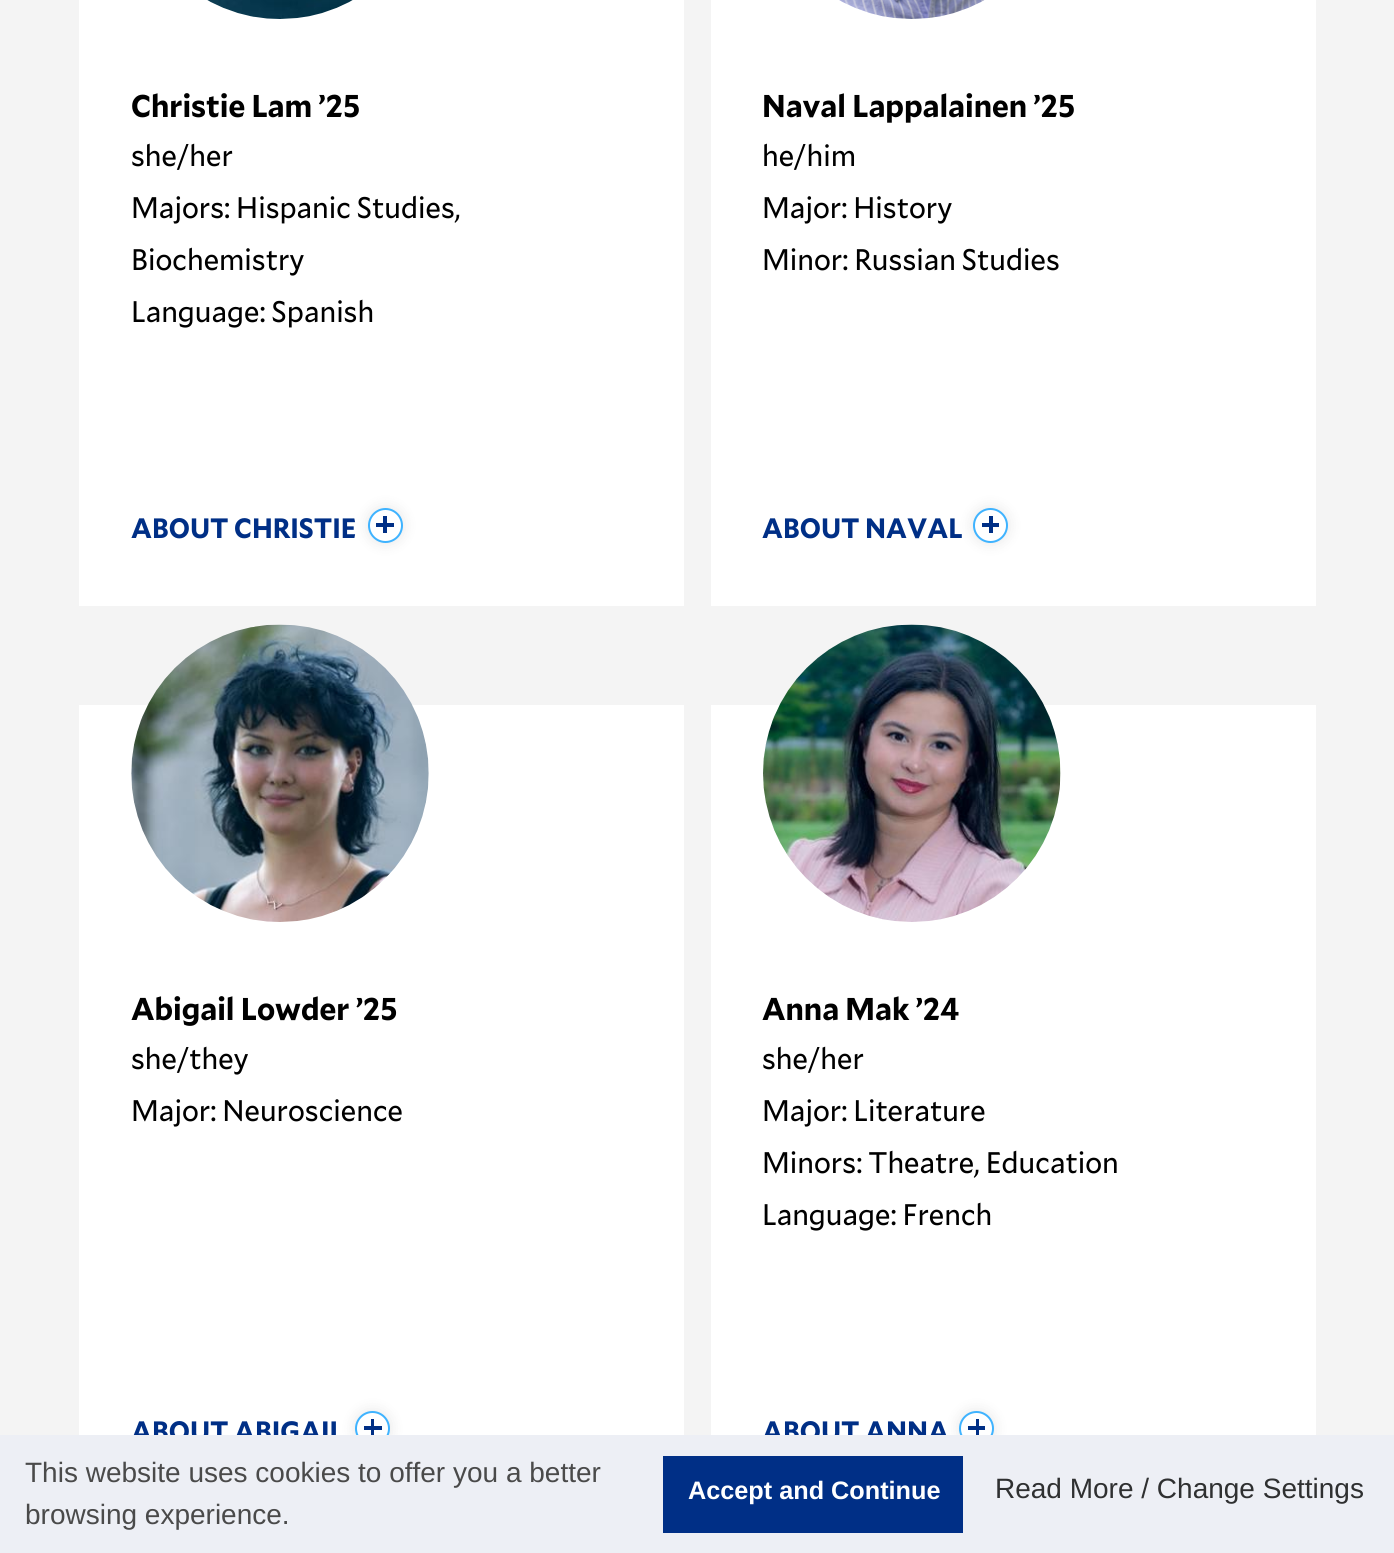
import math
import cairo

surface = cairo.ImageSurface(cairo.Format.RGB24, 1394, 1553)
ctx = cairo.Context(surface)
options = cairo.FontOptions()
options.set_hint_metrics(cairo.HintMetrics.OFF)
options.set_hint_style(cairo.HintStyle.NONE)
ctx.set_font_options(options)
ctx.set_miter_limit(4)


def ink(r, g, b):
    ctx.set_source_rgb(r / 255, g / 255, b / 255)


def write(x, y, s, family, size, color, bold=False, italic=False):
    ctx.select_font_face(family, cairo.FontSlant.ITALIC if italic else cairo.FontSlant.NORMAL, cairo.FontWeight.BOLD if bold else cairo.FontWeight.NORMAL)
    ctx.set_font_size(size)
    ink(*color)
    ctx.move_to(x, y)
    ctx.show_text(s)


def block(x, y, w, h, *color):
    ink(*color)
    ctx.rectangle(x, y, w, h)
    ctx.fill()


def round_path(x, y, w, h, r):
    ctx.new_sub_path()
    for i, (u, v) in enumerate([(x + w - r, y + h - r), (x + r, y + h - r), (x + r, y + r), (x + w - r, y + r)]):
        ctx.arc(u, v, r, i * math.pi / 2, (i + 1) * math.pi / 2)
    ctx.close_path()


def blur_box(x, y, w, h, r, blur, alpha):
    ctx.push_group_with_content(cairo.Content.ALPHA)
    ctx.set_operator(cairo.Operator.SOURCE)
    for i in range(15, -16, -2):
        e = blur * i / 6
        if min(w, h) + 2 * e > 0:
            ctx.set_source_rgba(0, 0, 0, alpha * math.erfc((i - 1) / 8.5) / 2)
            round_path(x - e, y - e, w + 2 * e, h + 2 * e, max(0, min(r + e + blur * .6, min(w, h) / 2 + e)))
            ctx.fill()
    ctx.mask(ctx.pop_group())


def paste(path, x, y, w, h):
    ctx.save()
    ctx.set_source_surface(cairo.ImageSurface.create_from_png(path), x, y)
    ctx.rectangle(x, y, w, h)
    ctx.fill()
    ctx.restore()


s1 = dict(family="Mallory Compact", size=31.5, color=(0, 0, 0), bold=True)
s2 = dict(family="Mallory Compact", size=29.75, color=(0, 0, 0))
s3 = dict(family="Mallory Compact", size=28, color=(0, 47, 134), bold=True)
s4 = dict(family="Liberation Sans", size=28, color=(74, 74, 74))
s5 = dict(family="Liberation Sans", size=25.25, color=(255, 255, 255), bold=True)
s6 = dict(family="Liberation Sans", size=28, color=(47, 48, 49))

ink(244, 244, 244)
ctx.paint()
block(79, 0, 605, 606, 255, 255, 255)
paste("pic1.png", 207, 0, 146, 19)
write(131, 117, "Christie Lam ’25", **s1)
write(131, 166, "she/her", **s2)
write(131, 218, "Majors: Hispanic Studies,", **s2)
write(131, 270, "Biochemistry", **s2)
write(131, 322, "Language: Spanish", **s2)
write(131, 538, "ABOUT CHRISTIE", **s3)
ink(0, 0, 0)
blur_box(368, 508, 35, 35, 17.5, 7, 0.1)
ink(255, 255, 255)
ctx.arc(385.5, 525.5, 16.5, 0, 2 * math.pi)
ctx.fill_preserve()
ink(63, 179, 255)
ctx.stroke()
block(376, 523, 18, 4, 0, 47, 134)
block(383, 516, 4, 17, 0, 47, 134)
block(711, 0, 605, 606, 255, 255, 255)
paste("pic2.png", 839, 0, 146, 19)
write(762, 117, "Naval Lappalainen ’25", **s1)
write(762, 166, "he/him", **s2)
write(762, 218, "Major: History", **s2)
write(762, 270, "Minor: Russian Studies", **s2)
write(762, 538, "ABOUT NAVAL", **s3)
ink(0, 0, 0)
blur_box(973, 508, 35, 35, 17.5, 7, 0.1)
ink(255, 255, 255)
ctx.arc(990.5, 525.5, 16.5, 0, 2 * math.pi)
ctx.fill_preserve()
ink(63, 179, 255)
ctx.stroke()
block(982, 523, 17, 4, 0, 47, 134)
block(989, 516, 4, 17, 0, 47, 134)
block(79, 705, 605, 730, 255, 255, 255)
paste("pic3.png", 131, 624, 298, 298)
write(131, 1020, "Abigail Lowder ’25", **s1)
write(131, 1069, "she/they", **s2)
write(131, 1121, "Major: Neuroscience", **s2)
write(131, 1441, "ABOUT ABIGAIL", **s3)
ink(0, 0, 0)
blur_box(355, 1411, 35, 35, 17.5, 7, 0.1)
ink(255, 255, 255)
ctx.arc(372.5, 1428.5, 16.5, 0, 2 * math.pi)
ctx.fill_preserve()
ink(63, 179, 255)
ctx.stroke()
block(364, 1426, 18, 4, 0, 47, 134)
block(371, 1419, 3, 17, 0, 47, 134)
block(711, 705, 605, 730, 255, 255, 255)
paste("pic4.png", 763, 624, 298, 298)
write(762, 1020, "Anna Mak ’24", **s1)
write(762, 1069, "she/her", **s2)
write(762, 1121, "Major: Literature", **s2)
write(762, 1173, "Minors: Theatre, Education", **s2)
write(762, 1225, "Language: French", **s2)
write(762, 1441, "ABOUT ANNA", **s3)
ink(0, 0, 0)
blur_box(959, 1411, 35, 35, 17.5, 7, 0.1)
ink(255, 255, 255)
ctx.arc(976.5, 1428.5, 16.5, 0, 2 * math.pi)
ctx.fill_preserve()
ink(63, 179, 255)
ctx.stroke()
block(968, 1426, 17, 4, 0, 47, 134)
block(976, 1419, 3, 17, 0, 47, 134)
block(0, 1435, 1394, 118, 237, 239, 245)
write(25, 1482, "This website uses cookies to offer you a better", **s4)
write(25, 1524, "browsing experience.", **s4)
block(663, 1456, 300, 77, 0, 47, 134)
write(688, 1499, "Accept and Continue", **s5)
write(995, 1498, "Read More / Change Settings", **s6)
surface.write_to_png("screenshot.png")
